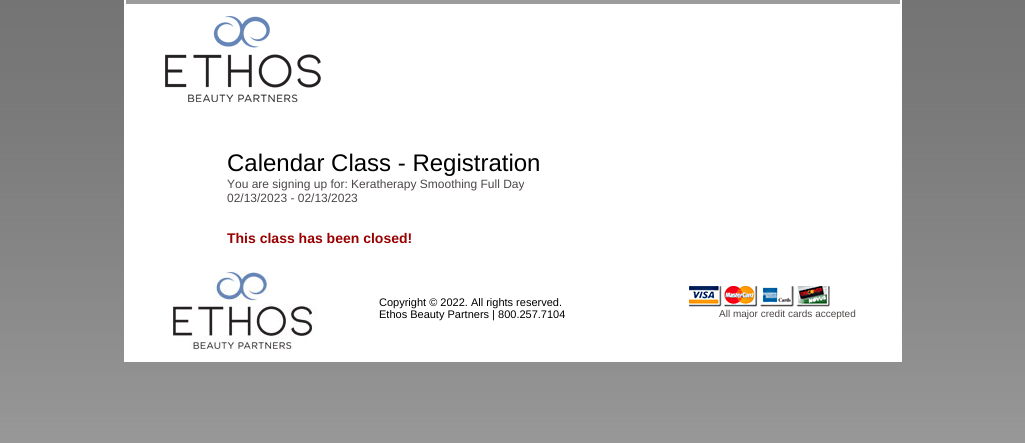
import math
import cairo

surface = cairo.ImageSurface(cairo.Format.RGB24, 1025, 443)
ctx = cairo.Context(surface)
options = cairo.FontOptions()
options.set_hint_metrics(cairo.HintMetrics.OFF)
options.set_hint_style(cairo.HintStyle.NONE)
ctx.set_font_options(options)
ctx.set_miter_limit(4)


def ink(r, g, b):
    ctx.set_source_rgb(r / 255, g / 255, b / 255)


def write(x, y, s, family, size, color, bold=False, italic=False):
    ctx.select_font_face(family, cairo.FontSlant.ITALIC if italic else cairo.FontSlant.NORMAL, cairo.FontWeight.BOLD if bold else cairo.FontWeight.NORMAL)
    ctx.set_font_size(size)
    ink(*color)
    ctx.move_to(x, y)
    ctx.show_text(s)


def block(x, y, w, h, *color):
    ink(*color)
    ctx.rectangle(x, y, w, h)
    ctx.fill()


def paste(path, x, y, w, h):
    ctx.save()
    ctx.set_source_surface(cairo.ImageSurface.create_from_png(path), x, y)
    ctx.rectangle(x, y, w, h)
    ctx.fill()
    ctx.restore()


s1 = dict(family="Liberation Sans", size=24, color=(0, 0, 0))
s2 = dict(family="Liberation Sans", size=12, color=(77, 71, 71))
s3 = dict(family="Liberation Sans", size=14, color=(153, 0, 0), bold=True)
s4 = dict(family="Liberation Sans", size=11, color=(0, 0, 0))
s5 = dict(family="Liberation Sans", size=10, color=(77, 71, 71))

ink(255, 255, 255)
ctx.paint()
paste("pic1.png", 0, 0, 1025, 443)
block(124, 0, 778, 362, 255, 255, 255)
block(126, 0, 774, 4, 157, 156, 156)
paste("pic2.png", 165, 16, 156, 86)
write(227, 171, "Calendar Class - Registration", **s1)
write(227, 188, "You are signing up for: Keratherapy Smoothing Full Day", **s2)
write(227, 202, "02/13/2023 - 02/13/2023", **s2)
write(227, 243, "This class has been closed!", **s3)
paste("pic3.png", 173, 271, 144, 79)
write(379, 306, "Copyright © 2022. All rights reserved.", **s4)
write(379, 318, "Ethos Beauty Partners | 800.257.7104", **s4)
paste("pic4.png", 689, 286, 141, 21)
write(719, 317, "All major credit cards accepted", **s5)
surface.write_to_png("screenshot.png")
